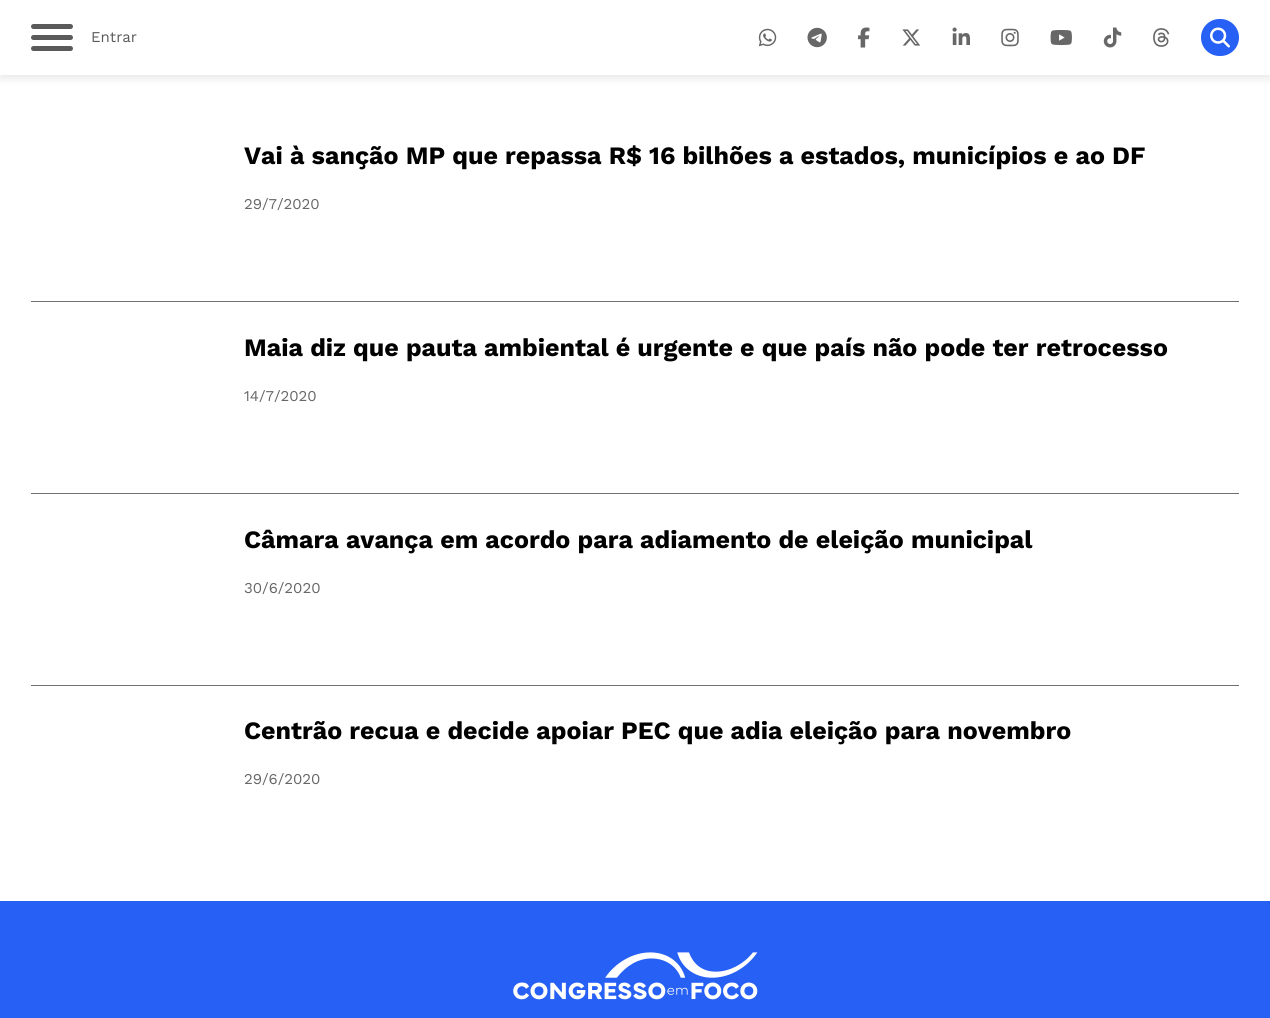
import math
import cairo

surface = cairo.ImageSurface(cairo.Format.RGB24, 1270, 1018)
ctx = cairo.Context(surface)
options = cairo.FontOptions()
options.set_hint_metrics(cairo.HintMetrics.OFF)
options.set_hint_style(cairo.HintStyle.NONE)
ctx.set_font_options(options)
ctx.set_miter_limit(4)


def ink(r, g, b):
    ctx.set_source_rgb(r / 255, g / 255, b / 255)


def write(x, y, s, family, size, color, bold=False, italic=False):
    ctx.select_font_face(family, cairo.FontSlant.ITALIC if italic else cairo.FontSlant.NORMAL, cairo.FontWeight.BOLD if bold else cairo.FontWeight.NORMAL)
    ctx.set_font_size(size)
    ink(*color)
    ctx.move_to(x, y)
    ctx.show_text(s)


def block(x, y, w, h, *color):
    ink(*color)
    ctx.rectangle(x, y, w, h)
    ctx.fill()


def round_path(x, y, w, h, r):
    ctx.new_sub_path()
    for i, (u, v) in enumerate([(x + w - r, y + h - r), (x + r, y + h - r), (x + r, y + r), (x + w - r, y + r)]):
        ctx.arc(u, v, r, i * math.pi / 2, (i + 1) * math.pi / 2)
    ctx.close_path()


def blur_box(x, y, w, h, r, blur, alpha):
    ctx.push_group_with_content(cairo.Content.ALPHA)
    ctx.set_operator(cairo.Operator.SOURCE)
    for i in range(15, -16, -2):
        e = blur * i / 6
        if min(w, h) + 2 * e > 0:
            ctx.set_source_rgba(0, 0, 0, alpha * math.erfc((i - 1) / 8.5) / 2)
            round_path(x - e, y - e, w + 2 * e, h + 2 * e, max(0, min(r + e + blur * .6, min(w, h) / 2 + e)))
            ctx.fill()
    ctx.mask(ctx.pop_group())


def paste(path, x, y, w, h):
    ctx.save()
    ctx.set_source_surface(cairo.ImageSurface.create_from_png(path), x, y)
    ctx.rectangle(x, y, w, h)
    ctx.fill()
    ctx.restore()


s1 = dict(family="Work Sans", size=15, color=(90, 90, 90))
s2 = dict(family="Work Sans", size=25, color=(0, 0, 0), bold=True)
s3 = dict(family="Work Sans", size=15, color=(103, 103, 103))

ink(255, 255, 255)
ctx.paint()
ink(122, 122, 122)
blur_box(0, 4, 1270, 75, 0, 4, 0.16)
block(0, 0, 1270, 75, 255, 255, 255)
ink(90, 90, 90)
round_path(31, 24, 42, 5, 2.5)
ctx.fill()
round_path(31, 35, 42, 5, 2.5)
ctx.fill()
round_path(31, 46, 42, 5, 2.5)
ctx.fill()
write(91, 42, "Entrar", **s1)
paste("pic1.png", 758, 28, 19, 19)
paste("pic2.png", 807, 27, 20, 21)
paste("pic3.png", 858, 27, 12, 21)
paste("pic4.png", 902, 29, 19, 17)
paste("pic5.png", 952, 27, 18, 18)
paste("pic6.png", 1001, 28, 18, 19)
paste("pic7.png", 1050, 30, 22, 15)
paste("pic8.png", 1103, 27, 19, 21)
paste("pic9.png", 1153, 28, 17, 19)
ink(38, 96, 245)
round_path(1201, 19, 38, 37, 18.5)
ctx.fill()
paste("pic10.png", 1210, 27, 20, 21)
block(31, 301, 1208, 1, 112, 112, 112)
write(244, 164, "Vai à sanção MP que repassa R$ 16 bilhões a estados, municípios e ao DF", **s2)
write(244, 209, "29/7/2020", **s3)
block(31, 493, 1208, 1, 112, 112, 112)
write(244, 356, "Maia diz que pauta ambiental é urgente e que país não pode ter retrocesso", **s2)
write(244, 401, "14/7/2020", **s3)
block(31, 685, 1208, 1, 112, 112, 112)
write(244, 548, "Câmara avança em acordo para adiamento de eleição municipal", **s2)
write(244, 593, "30/6/2020", **s3)
write(244, 739, "Centrão recua e decide apoiar PEC que adia eleição para novembro", **s2)
write(244, 784, "29/6/2020", **s3)
block(0, 901, 1270, 117, 38, 96, 245)
paste("pic11.png", 513, 952, 245, 48)
surface.write_to_png("screenshot.png")
